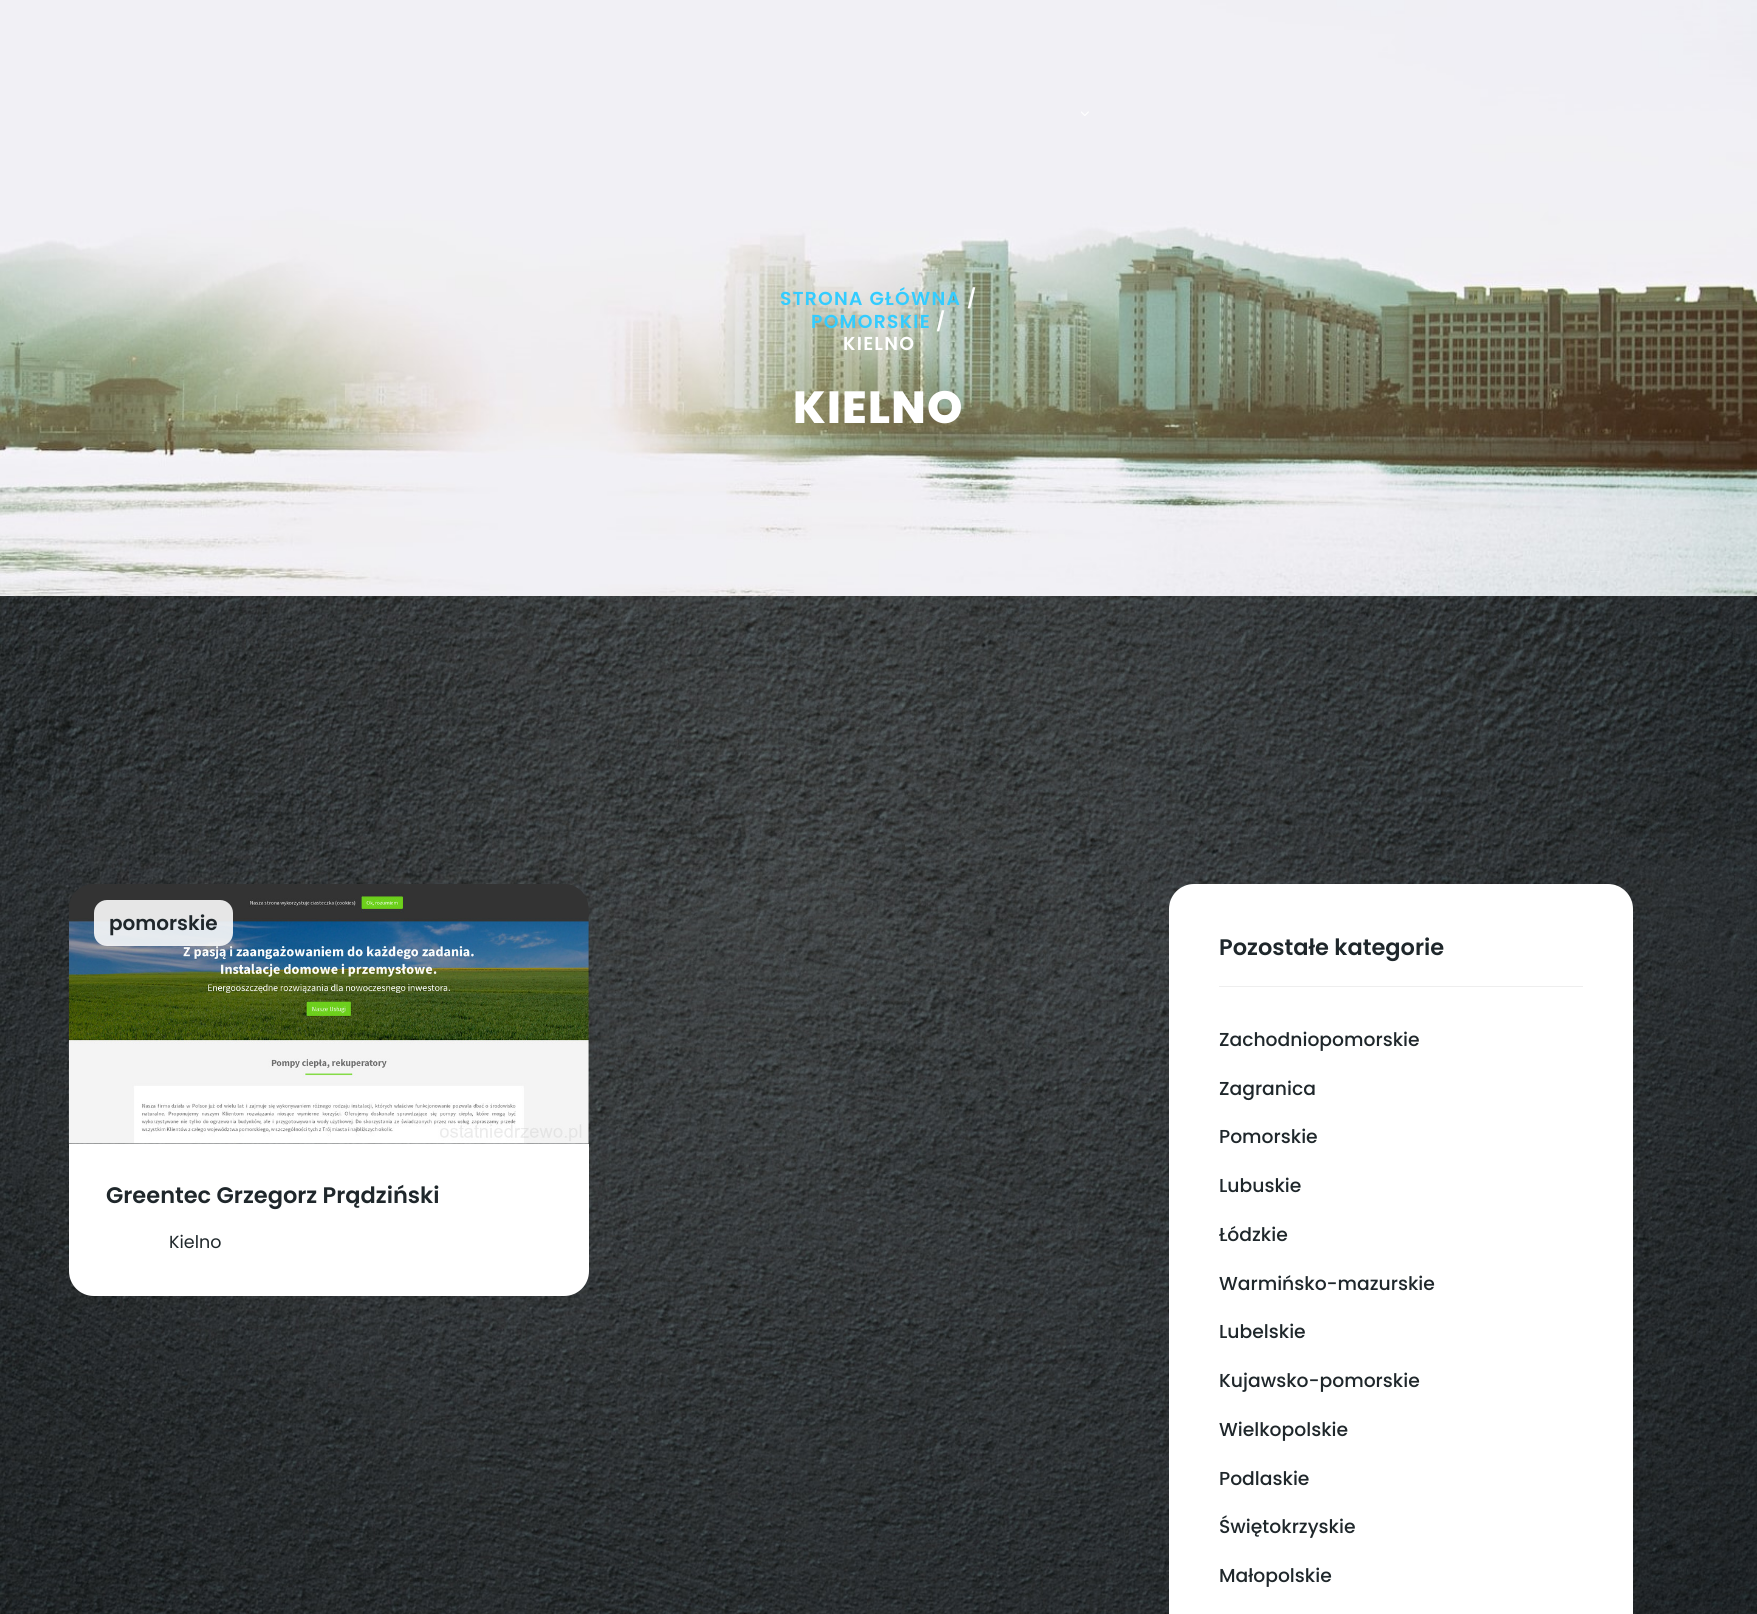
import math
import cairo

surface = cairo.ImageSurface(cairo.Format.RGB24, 1757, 1614)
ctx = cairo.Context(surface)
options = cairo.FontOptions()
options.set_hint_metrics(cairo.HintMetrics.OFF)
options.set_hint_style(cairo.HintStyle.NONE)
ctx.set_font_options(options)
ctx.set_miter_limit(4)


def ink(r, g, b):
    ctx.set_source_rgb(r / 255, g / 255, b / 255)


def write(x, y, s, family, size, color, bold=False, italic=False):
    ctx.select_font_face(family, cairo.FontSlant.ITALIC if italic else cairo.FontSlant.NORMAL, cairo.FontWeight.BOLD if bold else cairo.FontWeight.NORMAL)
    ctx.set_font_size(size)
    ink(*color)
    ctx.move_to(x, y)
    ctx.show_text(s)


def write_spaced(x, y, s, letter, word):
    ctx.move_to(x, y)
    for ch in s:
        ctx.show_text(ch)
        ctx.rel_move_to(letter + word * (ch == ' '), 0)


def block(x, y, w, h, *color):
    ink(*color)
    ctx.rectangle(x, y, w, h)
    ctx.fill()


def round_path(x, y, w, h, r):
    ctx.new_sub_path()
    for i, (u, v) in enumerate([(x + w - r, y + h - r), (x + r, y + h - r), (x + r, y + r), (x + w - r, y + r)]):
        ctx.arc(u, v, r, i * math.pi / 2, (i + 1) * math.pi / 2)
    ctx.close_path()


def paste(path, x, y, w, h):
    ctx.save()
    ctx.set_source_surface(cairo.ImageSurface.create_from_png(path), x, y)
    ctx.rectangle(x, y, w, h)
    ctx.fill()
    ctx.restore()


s1 = dict(family="Poppins SemiBold", size=20, color=(31, 39, 43))
s2 = dict(family="Poppins SemiBold", size=22.5, color=(31, 39, 43))
s3 = dict(family="Poppins", size=17.5, color=(31, 39, 43))
s4 = dict(family="Poppins Medium", size=18.75, color=(31, 39, 43))

ink(255, 255, 255)
ctx.paint()
paste("pic2.png", 0, 0, 1757, 596)
paste("pic1.png", 1081, 111, 8, 5)
ctx.select_font_face("Poppins SemiBold")
ctx.set_font_size(18.75)
ink(51, 204, 255)
write_spaced(780, 305, "STRONA GŁÓWNA", 1.25, 0)
ink(255, 255, 255)
write_spaced(967, 305, "/", 1.25, 0)
ink(51, 204, 255)
write_spaced(811, 328, "POMORSKIE", 1.25, 0)
ink(255, 255, 255)
write_spaced(936, 328, "/", 1.25, 0)
write_spaced(843, 350, "KIELNO", 1.25, 0)
ctx.select_font_face("Poppins ExtraBold")
ctx.set_font_size(45)
write_spaced(793, 423, "KIELNO", 1.25, 0)
paste("pic3.png", 0, 596, 1757, 1018)
paste("pic4.png", 68, 884, 521, 260)
ctx.set_source_rgba(0.98, 0.98, 0.98, 0.9)
round_path(94, 900, 139, 46, 13)
ctx.fill()
write(109, 930, "pomorskie", **s1)
ink(255, 255, 255)
ctx.new_path()
ctx.move_to(69, 1144)
ctx.line_to(589, 1144)
ctx.line_to(589, 1271)
ctx.curve_to(589, 1285, 578, 1296, 564, 1296)
ctx.line_to(94, 1296)
ctx.curve_to(80, 1296, 69, 1285, 69, 1271)
ctx.close_path()
ctx.fill()
write(106, 1203, "Greentec Grzegorz Prądziński", **s2)
write(169, 1248, "Kielno", **s3)
ink(255, 255, 255)
round_path(1169, 884, 464, 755, 25)
ctx.fill()
block(1219, 986, 364, 1, 238, 238, 238)
write(1219, 955, "Pozostałe kategorie", **s2)
write(1219, 1046, "Zachodniopomorskie", **s4)
write(1219, 1095, "Zagranica", **s4)
write(1219, 1143, "Pomorskie", **s4)
write(1219, 1192, "Lubuskie", **s4)
write(1219, 1241, "Łódzkie", **s4)
write(1219, 1290, "Warmińsko-mazurskie", **s4)
write(1219, 1338, "Lubelskie", **s4)
write(1219, 1387, "Kujawsko-pomorskie", **s4)
write(1219, 1436, "Wielkopolskie", **s4)
write(1219, 1485, "Podlaskie", **s4)
write(1219, 1533, "Świętokrzyskie", **s4)
write(1219, 1582, "Małopolskie", **s4)
surface.write_to_png("screenshot.png")
